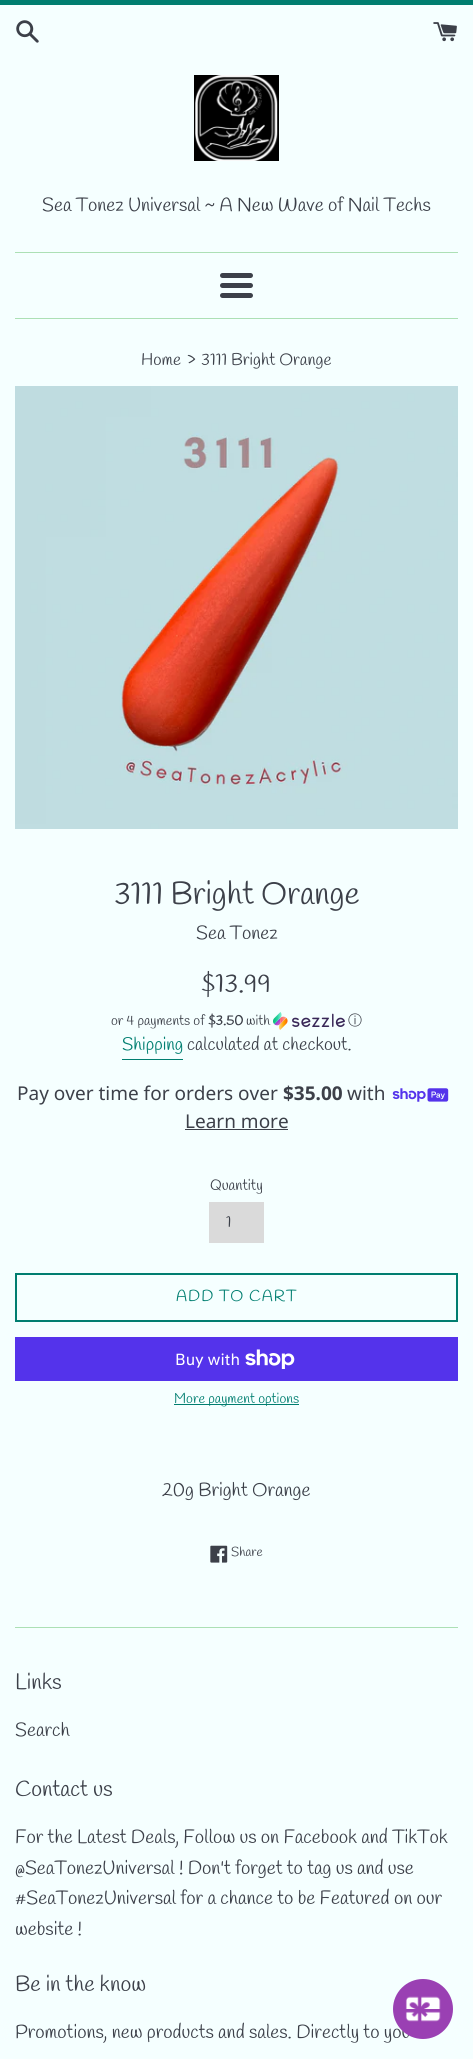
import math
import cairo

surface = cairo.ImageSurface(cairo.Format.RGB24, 473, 2059)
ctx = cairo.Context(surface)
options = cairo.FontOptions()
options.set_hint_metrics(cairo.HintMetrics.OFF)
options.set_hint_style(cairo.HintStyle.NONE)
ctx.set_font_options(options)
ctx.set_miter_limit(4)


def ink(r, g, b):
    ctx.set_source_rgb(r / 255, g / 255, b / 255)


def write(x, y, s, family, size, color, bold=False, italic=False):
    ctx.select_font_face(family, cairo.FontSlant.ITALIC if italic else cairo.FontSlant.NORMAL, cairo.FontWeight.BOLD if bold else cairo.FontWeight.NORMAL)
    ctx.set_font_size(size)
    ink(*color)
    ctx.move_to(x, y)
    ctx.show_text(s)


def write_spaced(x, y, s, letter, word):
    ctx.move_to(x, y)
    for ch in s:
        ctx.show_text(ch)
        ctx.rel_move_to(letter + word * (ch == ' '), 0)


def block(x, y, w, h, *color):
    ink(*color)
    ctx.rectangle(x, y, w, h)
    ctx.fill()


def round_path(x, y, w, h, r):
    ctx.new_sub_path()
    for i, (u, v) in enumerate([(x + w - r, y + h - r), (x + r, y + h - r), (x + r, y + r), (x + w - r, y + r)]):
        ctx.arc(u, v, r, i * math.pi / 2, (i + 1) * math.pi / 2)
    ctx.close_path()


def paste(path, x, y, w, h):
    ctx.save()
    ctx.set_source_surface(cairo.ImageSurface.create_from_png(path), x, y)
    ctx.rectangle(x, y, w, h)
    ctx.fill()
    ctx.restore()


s1 = dict(family="Handlee", size=19, color=(60, 64, 73))
s2 = dict(family="Handlee", size=17, color=(60, 64, 73))
s3 = dict(family="Handlee", size=21, color=(60, 64, 73))
s4 = dict(family="Handlee", size=32, color=(60, 64, 73))
s5 = dict(family="Handlee", size=26.5, color=(60, 64, 73))
s6 = dict(family="Handlee", size=14, color=(60, 64, 73))
s7 = dict(family="Handlee", size=14, color=(60, 64, 73), bold=True)
s8 = dict(family="WenQuanYi Zen Hei Medium", size=14, color=(60, 64, 73))
s9 = dict(family="Handlee", size=18, color=(0, 126, 112))
s10 = dict(family="Handlee", size=18, color=(60, 64, 73))
s11 = dict(family="Noto Sans", size=19, color=(60, 64, 73))
s12 = dict(family="Noto Sans", size=19, color=(60, 64, 73), bold=True)
s13 = dict(family="Handlee", size=15, color=(60, 64, 73))
s14 = dict(family="Handlee", size=16, color=(60, 64, 73))
s15 = dict(family="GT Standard", size=16, color=(255, 255, 255))
s16 = dict(family="Handlee", size=14, color=(0, 126, 112))
s17 = dict(family="Handlee", size=13, color=(60, 64, 73))
s18 = dict(family="Handlee", size=22, color=(60, 64, 73))

ink(245, 255, 255)
ctx.paint()
block(0, 0, 473, 5, 0, 126, 112)
paste("pic1.png", 16, 20, 23, 23)
paste("pic2.png", 433, 22, 24, 20)
paste("pic3.png", 194, 75, 85, 86)
write(42, 211, "Sea Tonez Universal ~ A New Wave of Nail Techs", **s1)
block(15, 252, 443, 1, 172, 224, 181)
ink(60, 64, 73)
round_path(220, 273, 33, 5, 2.5)
ctx.fill()
round_path(220, 283, 33, 5, 2.5)
ctx.fill()
round_path(220, 293, 33, 5, 2.5)
ctx.fill()
block(15, 318, 443, 1, 172, 224, 181)
write(141, 365, "Home", **s2)
write(187, 365, "›", **s3)
write(201, 365, "3111 Bright Orange", **s2)
paste("pic4.png", 15, 386, 443, 443)
write(114, 904, "3111 Bright Orange", **s4)
write(196, 939, "Sea Tonez", **s1)
write(201, 992, "$13.99", **s5)
write(111, 1025, "or 4 payments of", **s6)
write(208, 1025, "$3.50", **s7)
write(246, 1025, "with", **s6)
paste("pic5.png", 273, 1012, 72, 18)
write(348, 1025, "ⓘ", **s8)
write(122, 1050, "Shipping", **s9)
block(122, 1059, 61, 1, 0, 126, 112)
write(187, 1050, "calculated at checkout.", **s10)
write(17, 1100, "Pay over time for orders over", **s11)
write(283, 1100, "$35.00", **s12)
write(347, 1100, "with", **s11)
paste("pic6.png", 392, 1088, 57, 14)
write(185, 1128, "Learn more", **s11)
block(185, 1129, 103, 1, 60, 64, 73)
write(210, 1190, "Quantity", **s13)
block(209, 1202, 55, 41, 218, 218, 218)
write(226, 1227, "1", **s14)
ctx.rectangle(16, 1274, 441, 47)
ink(0, 126, 112)
ctx.stroke()
write_spaced(176, 1301, "ADD TO CART", 1, 0)
block(15, 1337, 443, 44, 84, 51, 235)
write(175, 1365, "Buy with", **s15)
paste("pic7.png", 245, 1349, 50, 20)
block(174, 1404, 125, 1, 0, 126, 112)
write(174, 1403, "More payment options", **s16)
write(162, 1496, "20g Bright Orange", **s1)
paste("pic8.png", 210, 1545, 18, 18)
write(231, 1556, "Share", **s17)
block(15, 1627, 443, 1, 172, 224, 181)
write(15, 1689, "Links", **s18)
write(15, 1736, "Search", **s1)
write(15, 1796, "Contact us", **s18)
write(15, 1843, "For the Latest Deals, Follow us on Facebook and TikTok", **s1)
write(15, 1874, "@SeaTonezUniversal ! Don't forget to tag us and use", **s1)
write(15, 1904, "#SeaTonezUniversal for a chance to be Featured on our", **s1)
write(15, 1935, "website !", **s1)
write(15, 1991, "Be in the know", **s18)
write(15, 2038, "Promotions, new products and sales. Directly to you", **s1)
ink(154, 64, 179)
ctx.new_path()
ctx.arc(423, 2009, 30, 0, 2 * math.pi)
ctx.fill()
paste("pic9.png", 405, 1996, 36, 26)
surface.write_to_png("screenshot.png")
